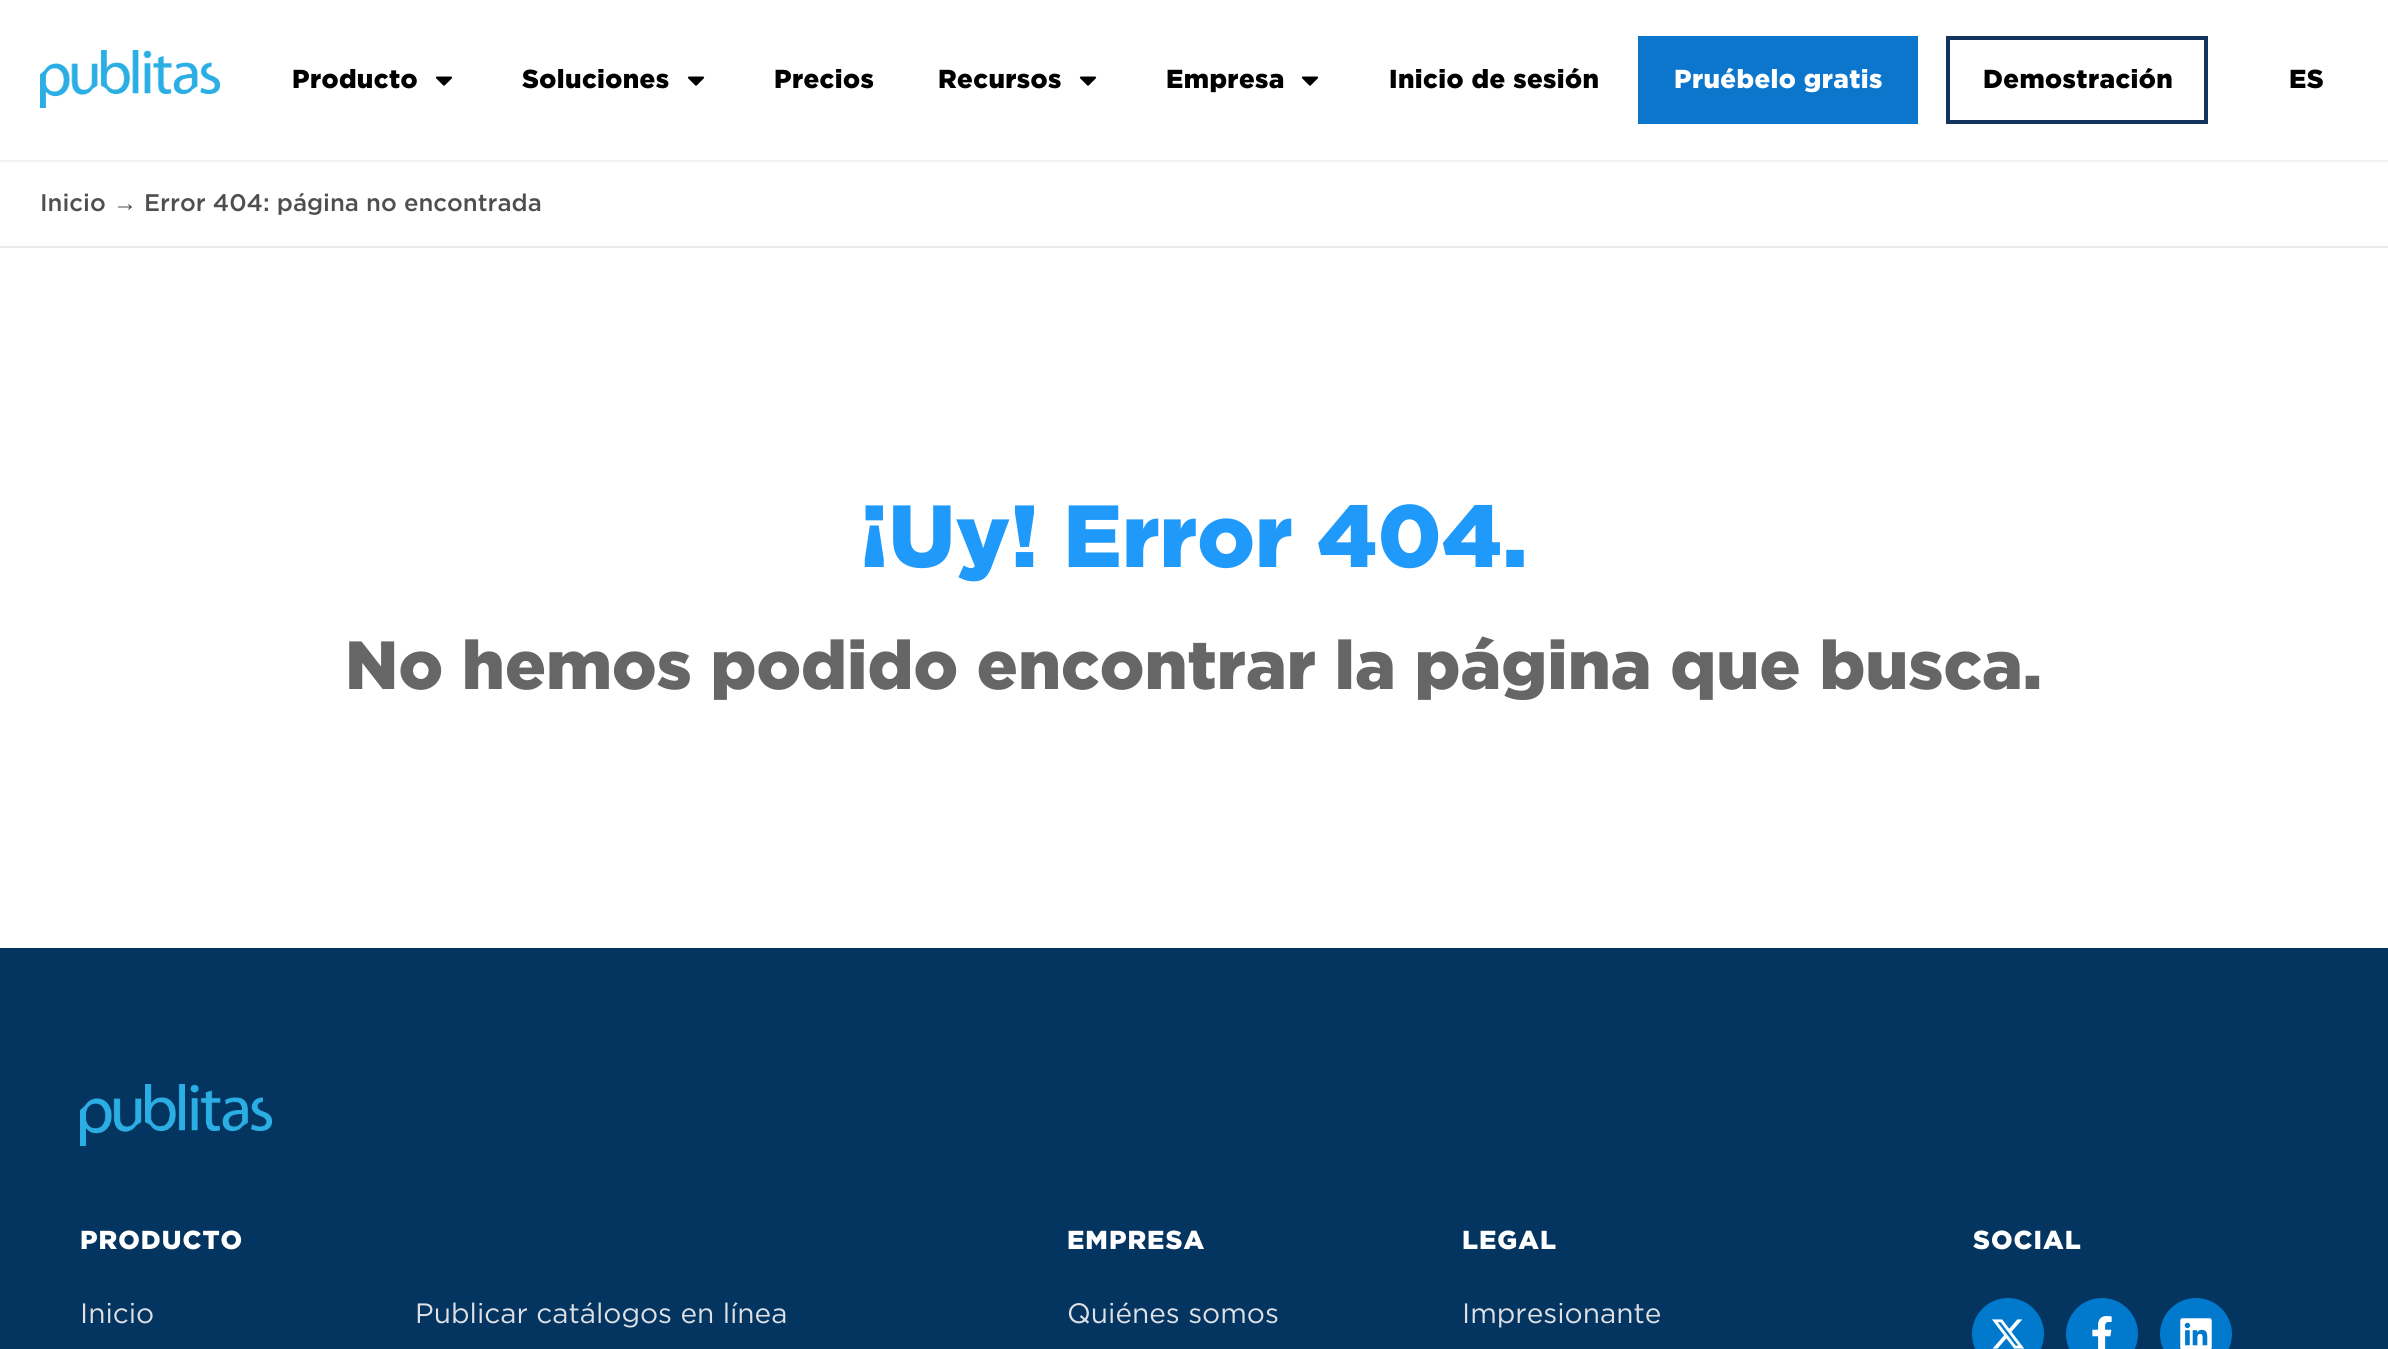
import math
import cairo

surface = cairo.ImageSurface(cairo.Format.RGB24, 2388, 1349)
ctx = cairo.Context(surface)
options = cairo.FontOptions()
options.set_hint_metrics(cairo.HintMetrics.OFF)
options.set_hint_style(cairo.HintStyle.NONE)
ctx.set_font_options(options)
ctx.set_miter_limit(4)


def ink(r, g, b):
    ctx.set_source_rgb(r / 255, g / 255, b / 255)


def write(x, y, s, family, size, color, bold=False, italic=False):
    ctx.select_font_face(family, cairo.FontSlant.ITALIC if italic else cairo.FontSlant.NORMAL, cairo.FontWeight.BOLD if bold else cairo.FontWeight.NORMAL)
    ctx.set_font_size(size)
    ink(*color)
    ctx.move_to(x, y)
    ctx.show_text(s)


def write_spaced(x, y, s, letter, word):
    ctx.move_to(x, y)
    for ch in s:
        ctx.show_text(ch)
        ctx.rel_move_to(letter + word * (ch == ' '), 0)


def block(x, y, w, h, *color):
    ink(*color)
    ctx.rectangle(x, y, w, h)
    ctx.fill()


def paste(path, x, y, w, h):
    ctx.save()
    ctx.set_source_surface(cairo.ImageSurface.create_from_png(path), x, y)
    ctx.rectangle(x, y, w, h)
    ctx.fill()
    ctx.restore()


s1 = dict(family="Gotham Medium", size=24, color=(80, 79, 79))
s2 = dict(family="Liberation Sans", size=24, color=(80, 79, 79))
s3 = dict(family="Gotham Black", size=88, color=(31, 153, 250))
s4 = dict(family="Gotham Black", size=68, color=(102, 102, 102))
s5 = dict(family="Gotham", size=28, color=(221, 225, 229))

ink(255, 255, 255)
ctx.paint()
block(0, 160, 2388, 2, 242, 242, 242)
paste("pic1.png", 40, 50, 180, 58)
ctx.select_font_face("Gotham Black")
ctx.set_font_size(26)
ink(0, 0, 0)
write_spaced(292, 88, "Producto", 0.4, 0)
paste("pic2.png", 435, 76, 18, 10)
write_spaced(522, 88, "Soluciones", 0.4, 0)
paste("pic2.png", 687, 76, 18, 10)
write_spaced(774, 88, "Precios", 0.4, 0)
write_spaced(938, 88, "Recursos", 0.4, 0)
paste("pic2.png", 1079, 76, 18, 10)
write_spaced(1166, 88, "Empresa", 0.4, 0)
paste("pic2.png", 1301, 76, 18, 10)
write_spaced(1389, 88, "Inicio de sesión", 0.4, 0)
block(1638, 36, 280, 88, 11, 118, 204)
ink(255, 255, 255)
write_spaced(1674, 88, "Pruébelo gratis", 0.4, 0)
ctx.rectangle(1948, 38, 258, 84)
ink(19, 52, 92)
ctx.set_line_width(4)
ctx.stroke()
ink(0, 0, 0)
write_spaced(1983, 88, "Demostración", 0.4, 0)
write_spaced(2289, 88, "ES", 0.4, 0)
block(0, 246, 2388, 2, 235, 235, 235)
write(40, 211, "Inicio", **s1)
write(113, 211, "→", **s2)
write(144, 211, "Error 404: página no encontrada", **s1)
write(860, 567, "¡Uy! Error 404.", **s3)
write(345, 689, "No hemos podido encontrar la página que busca.", **s4)
block(0, 948, 2388, 401, 4, 52, 96)
paste("pic3.png", 80, 1084, 192, 62)
ctx.set_font_size(26)
ink(255, 255, 255)
write_spaced(80, 1249, "PRODUCTO", 1, 0)
write(80, 1323, "Inicio", **s5)
ctx.select_font_face("Gotham Black")
ctx.set_font_size(26)
ink(255, 255, 255)
write_spaced(1067, 1249, "EMPRESA", 1, 0)
write(1067, 1323, "Quiénes somos", **s5)
ctx.select_font_face("Gotham Black")
ctx.set_font_size(26)
ink(255, 255, 255)
write_spaced(1462, 1249, "LEGAL", 1, 0)
write(1462, 1323, "Impresionante", **s5)
ctx.select_font_face("Gotham Black")
ctx.set_font_size(26)
ink(255, 255, 255)
write_spaced(1973, 1249, "SOCIAL", 1, 0)
ink(1, 121, 205)
ctx.new_path()
ctx.arc(2008, 1334, 36, 0, 2 * math.pi)
ctx.fill()
paste("pic4.png", 1992, 1319, 33, 30)
ctx.arc(2102, 1334, 36, 0, 2 * math.pi)
ctx.fill()
paste("pic5.png", 2092, 1316, 20, 33)
ctx.arc(2196, 1334, 36, 0, 2 * math.pi)
ctx.fill()
paste("pic6.png", 2180, 1318, 32, 31)
write(415, 1323, "Publicar catálogos en línea", **s5)
surface.write_to_png("screenshot.png")
